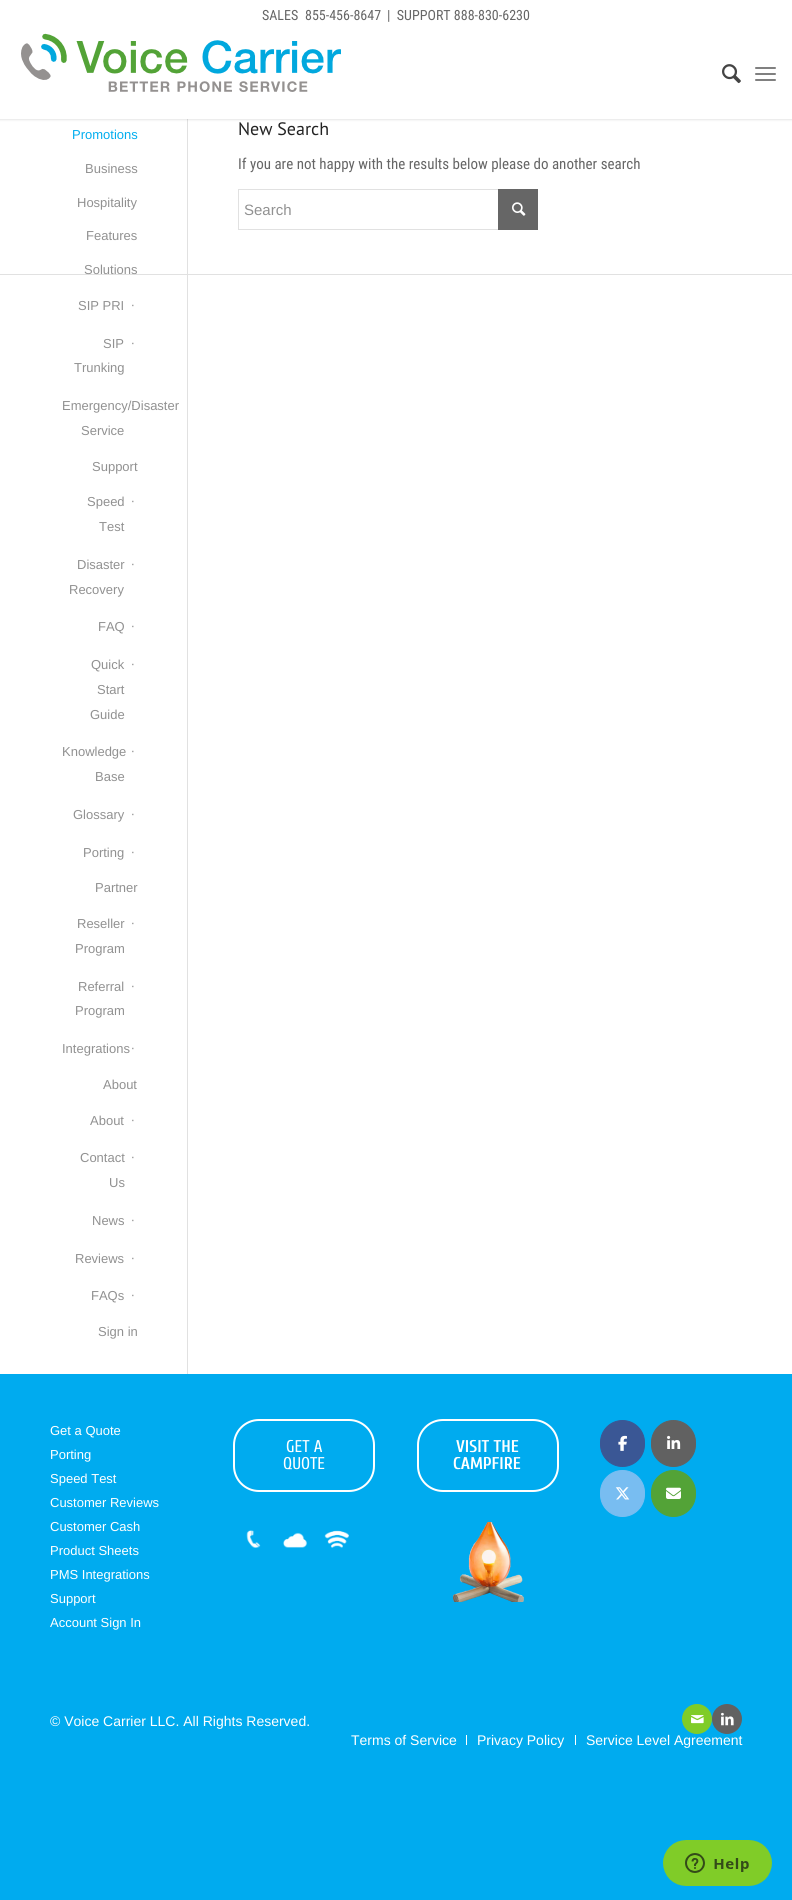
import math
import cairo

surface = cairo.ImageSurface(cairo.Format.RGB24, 792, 1900)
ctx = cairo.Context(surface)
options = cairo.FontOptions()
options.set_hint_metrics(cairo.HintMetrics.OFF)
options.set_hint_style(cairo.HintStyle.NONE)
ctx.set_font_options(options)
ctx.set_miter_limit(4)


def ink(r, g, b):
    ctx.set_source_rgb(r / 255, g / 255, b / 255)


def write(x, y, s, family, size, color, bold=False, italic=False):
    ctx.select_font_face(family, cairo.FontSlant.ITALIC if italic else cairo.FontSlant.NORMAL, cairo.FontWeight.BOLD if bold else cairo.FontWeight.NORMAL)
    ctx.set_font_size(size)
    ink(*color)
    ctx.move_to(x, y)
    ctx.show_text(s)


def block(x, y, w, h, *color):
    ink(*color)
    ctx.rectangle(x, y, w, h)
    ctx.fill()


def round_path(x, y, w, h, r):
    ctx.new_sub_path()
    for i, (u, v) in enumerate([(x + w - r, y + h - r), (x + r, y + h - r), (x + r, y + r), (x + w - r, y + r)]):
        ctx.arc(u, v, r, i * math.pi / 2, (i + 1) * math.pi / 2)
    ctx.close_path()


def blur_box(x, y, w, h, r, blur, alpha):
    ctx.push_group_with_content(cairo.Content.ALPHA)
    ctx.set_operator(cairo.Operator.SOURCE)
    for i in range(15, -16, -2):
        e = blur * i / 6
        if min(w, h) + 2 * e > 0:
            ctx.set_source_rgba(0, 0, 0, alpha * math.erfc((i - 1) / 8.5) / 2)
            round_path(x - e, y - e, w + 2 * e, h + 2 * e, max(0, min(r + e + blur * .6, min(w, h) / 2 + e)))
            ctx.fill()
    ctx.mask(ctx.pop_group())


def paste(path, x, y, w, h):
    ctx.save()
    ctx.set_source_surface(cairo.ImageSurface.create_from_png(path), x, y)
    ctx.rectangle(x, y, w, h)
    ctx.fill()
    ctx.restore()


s1 = dict(family="Roboto Condensed", size=14, color=(102, 102, 102))
s2 = dict(family="Liberation Sans", size=13, color=(0, 173, 239))
s3 = dict(family="Liberation Sans", size=13, color=(145, 145, 145))
s4 = dict(family="PT Sans", size=18, color=(34, 34, 34))
s5 = dict(family="Roboto Condensed", size=15, color=(102, 102, 102))
s6 = dict(family="Liberation Sans", size=15, color=(145, 145, 145))
s7 = dict(family="Liberation Sans", size=13, color=(255, 255, 255))
s8 = dict(family="Cuprum", size=17, color=(255, 255, 255))
s9 = dict(family="Cuprum", size=17, color=(255, 255, 255), bold=True)
s10 = dict(family="Liberation Sans", size=14, color=(255, 255, 255))

ink(0, 171, 239)
ctx.paint()
block(0, 119, 792, 1255, 255, 255, 255)
block(0, 274, 792, 1, 225, 225, 225)
block(187, 119, 1, 1255, 225, 225, 225)
ink(0, 0, 0)
blur_box(-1, -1, 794, 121, 0, 1, 0.1)
block(0, 0, 792, 119, 255, 255, 255)
write(262, 20, "SALES", **s1)
write(305, 20, "855-456-8647", **s1)
write(387, 20, "|  SUPPORT 888-830-6230", **s1)
paste("pic1.png", 21, 33, 320, 59)
paste("pic2.png", 722, 64, 19, 20)
ink(128, 128, 128)
round_path(755, 73, 21, 2, 1)
ctx.fill()
round_path(755, 67, 21, 2, 1)
ctx.fill()
round_path(755, 79, 21, 2, 1)
ctx.fill()
write(72, 139, "Promotions", **s2)
write(85, 173, "Business", **s3)
write(77, 207, "Hospitality", **s3)
write(86, 240, "Features", **s3)
write(84, 274, "Solutions", **s3)
write(78, 310, "SIP PRI", **s3)
write(131, 309, "∙", **s3)
write(103, 348, "SIP", **s3)
write(74, 372, "Trunking", **s3)
write(131, 347, "∙", **s3)
write(62, 410, "Emergency/Disaster", **s3)
write(81, 435, "Service", **s3)
write(131, 409, "∙", **s3)
write(92, 471, "Support", **s3)
write(87, 506, "Speed", **s3)
write(99, 531, "Test", **s3)
write(131, 505, "∙", **s3)
write(77, 569, "Disaster", **s3)
write(69, 594, "Recovery", **s3)
write(131, 568, "∙", **s3)
write(98, 631, "FAQ", **s3)
write(131, 630, "∙", **s3)
write(91, 669, "Quick", **s3)
write(97, 694, "Start", **s3)
write(90, 719, "Guide", **s3)
write(131, 668, "∙", **s3)
write(62, 756, "Knowledge", **s3)
write(95, 781, "Base", **s3)
write(131, 755, "∙", **s3)
write(73, 819, "Glossary", **s3)
write(131, 818, "∙", **s3)
write(83, 857, "Porting", **s3)
write(131, 856, "∙", **s3)
write(95, 892, "Partner", **s3)
write(77, 928, "Reseller", **s3)
write(75, 953, "Program", **s3)
write(131, 927, "∙", **s3)
write(78, 991, "Referral", **s3)
write(75, 1015, "Program", **s3)
write(131, 990, "∙", **s3)
write(62, 1053, "Integrations", **s3)
write(131, 1052, "∙", **s3)
write(103, 1089, "About", **s3)
write(90, 1125, "About", **s3)
write(131, 1124, "∙", **s3)
write(80, 1162, "Contact", **s3)
write(109, 1187, "Us", **s3)
write(131, 1161, "∙", **s3)
write(92, 1225, "News", **s3)
write(131, 1224, "∙", **s3)
write(75, 1263, "Reviews", **s3)
write(131, 1262, "∙", **s3)
write(91, 1300, "FAQs", **s3)
write(131, 1299, "∙", **s3)
write(98, 1336, "Sign in", **s3)
write(238, 135, "New Search", **s4)
write(238, 169, "If you are not happy with the results below please do another search", **s5)
ctx.rectangle(238.5, 189.5, 299, 40)
ink(225, 225, 225)
ctx.set_line_width(1)
ctx.stroke()
write(244, 215, "Search", **s6)
block(498, 189, 40, 41, 102, 102, 102)
paste("pic3.png", 512, 202, 14, 14)
write(50, 1435, "Get a Quote", **s7)
write(50, 1459, "Porting", **s7)
write(50, 1483, "Speed Test", **s7)
write(50, 1507, "Customer Reviews", **s7)
write(50, 1531, "Customer Cash", **s7)
write(50, 1555, "Product Sheets", **s7)
write(50, 1579, "PMS Integrations", **s7)
write(50, 1603, "Support", **s7)
write(50, 1627, "Account Sign In", **s7)
round_path(234, 1420, 140, 71, 25)
ctx.set_line_width(2)
ctx.stroke()
write(286, 1452, "GET A", **s8)
write(283, 1469, "QUOTE", **s8)
paste("pic4.png", 246, 1530, 103, 18)
round_path(418, 1420, 140, 71, 25)
ctx.stroke()
write(456, 1452, "VISIT THE", **s9)
write(453, 1469, "CAMPFIRE", **s9)
paste("pic5.png", 453, 1522, 71, 80)
ink(58, 87, 149)
round_path(600.5, 1420.5, 44, 46, 22)
ctx.fill_preserve()
ctx.set_line_width(1)
ctx.stroke()
paste("pic6.png", 618, 1435, 9, 16)
ink(97, 97, 97)
round_path(651.5, 1420.5, 44, 46, 22)
ctx.fill_preserve()
ctx.stroke()
paste("pic7.png", 667, 1435, 14, 14)
ink(120, 189, 241)
round_path(600.5, 1470.5, 44, 46, 22)
ctx.fill_preserve()
ctx.stroke()
paste("pic8.png", 615, 1487, 15, 13)
ink(83, 163, 55)
round_path(651.5, 1470.5, 44, 46, 22)
ctx.fill_preserve()
ctx.stroke()
paste("pic9.png", 666, 1487, 15, 12)
write(50, 1726, "© Voice Carrier LLC. All Rights Reserved.", **s10)
ink(128, 204, 40)
ctx.new_path()
ctx.arc(697, 1719, 15, 0, 2 * math.pi)
ctx.fill()
paste("pic10.png", 691, 1715, 13, 9)
ink(97, 97, 97)
ctx.arc(727, 1719, 15, 0, 2 * math.pi)
ctx.fill()
paste("pic11.png", 721, 1712, 13, 14)
write(351, 1745, "Terms of Service", **s10)
block(466, 1735, 1, 10, 255, 255, 255)
write(477, 1745, "Privacy Policy", **s10)
block(575, 1735, 1, 10, 255, 255, 255)
write(586, 1745, "Service Level Agreement", **s10)
paste("pic12.png", 663, 1840, 109, 46)
surface.write_to_png("screenshot.png")
